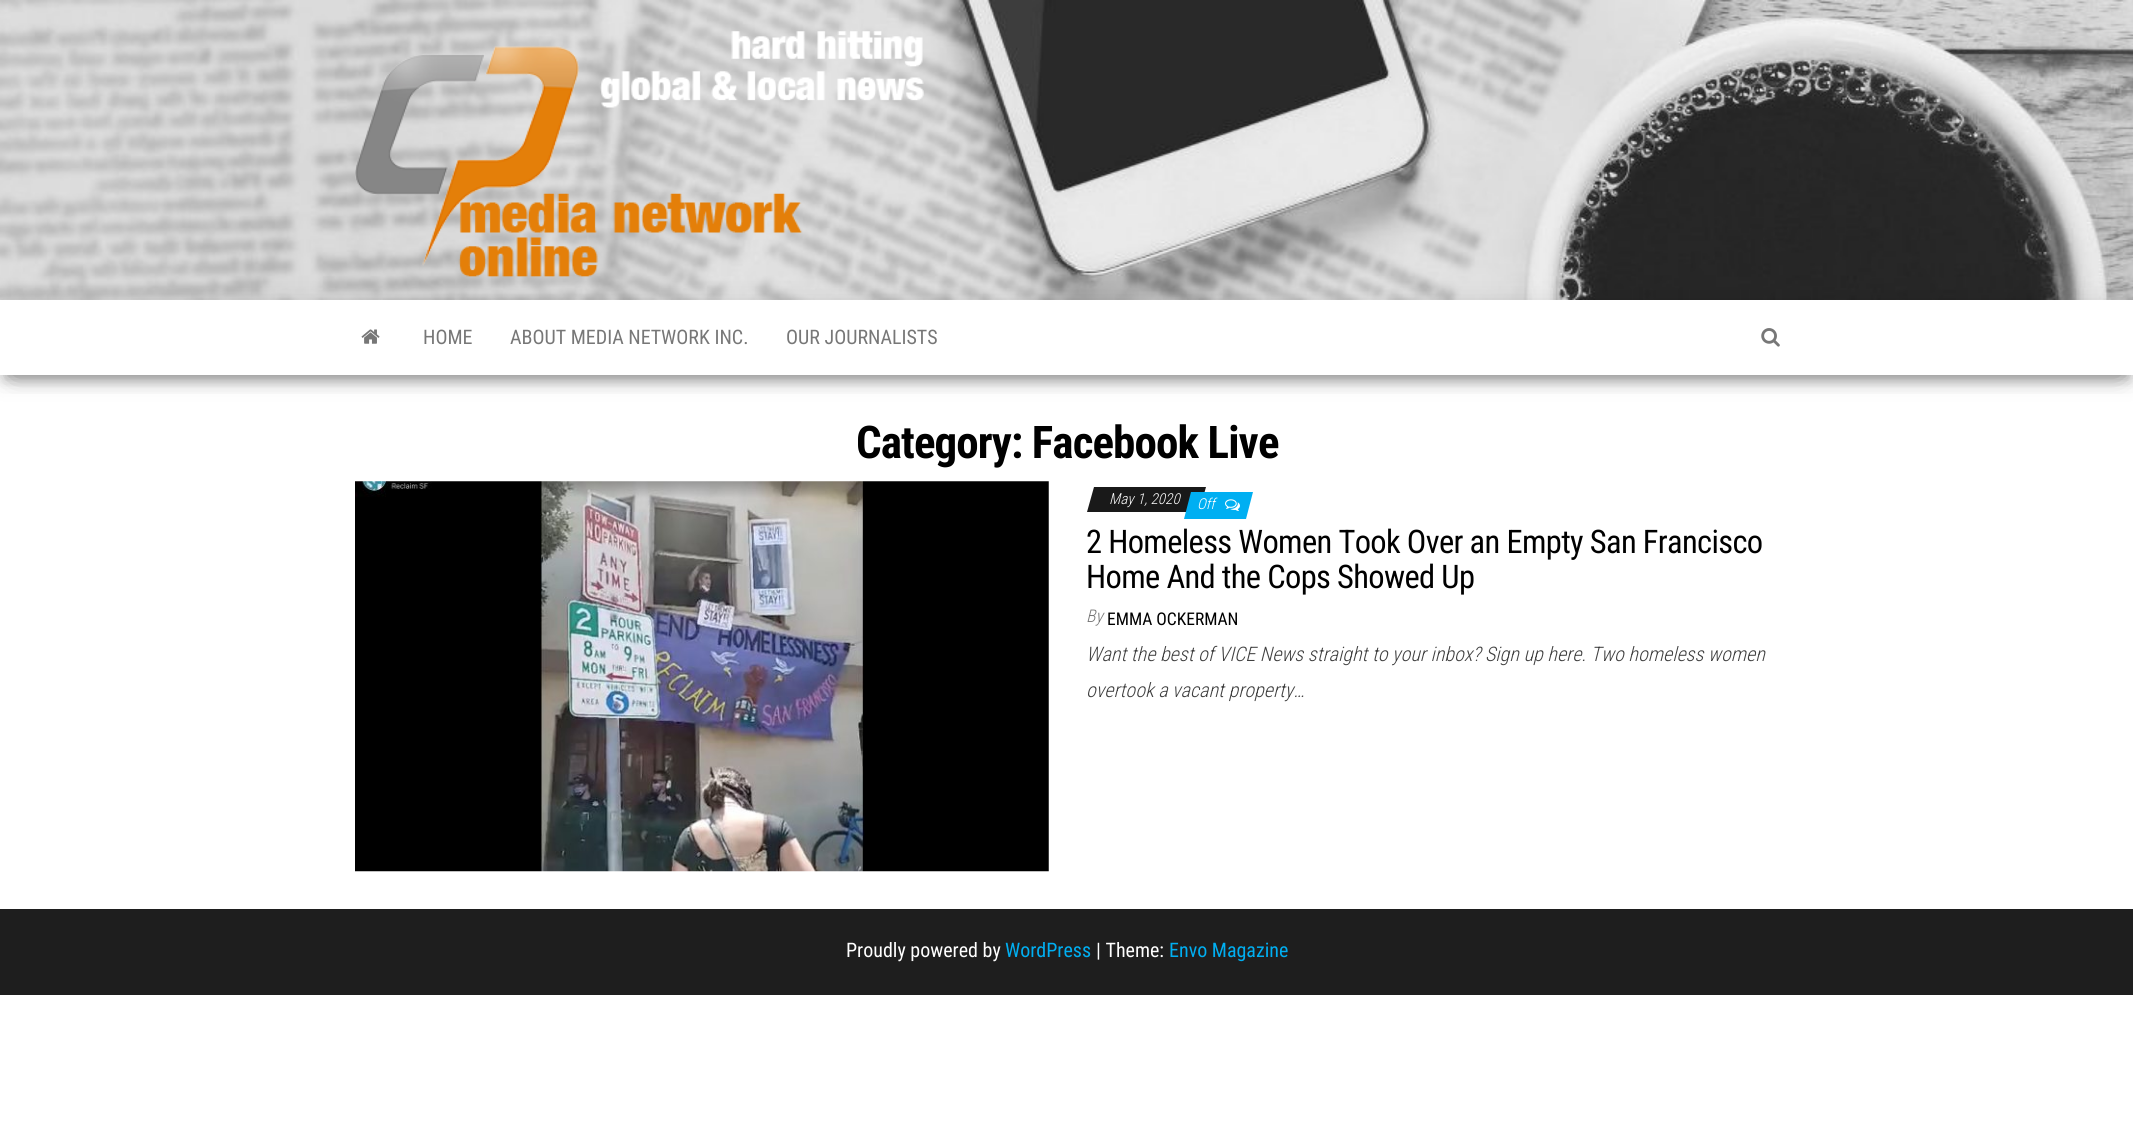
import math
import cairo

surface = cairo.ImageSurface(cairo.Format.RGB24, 2133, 1139)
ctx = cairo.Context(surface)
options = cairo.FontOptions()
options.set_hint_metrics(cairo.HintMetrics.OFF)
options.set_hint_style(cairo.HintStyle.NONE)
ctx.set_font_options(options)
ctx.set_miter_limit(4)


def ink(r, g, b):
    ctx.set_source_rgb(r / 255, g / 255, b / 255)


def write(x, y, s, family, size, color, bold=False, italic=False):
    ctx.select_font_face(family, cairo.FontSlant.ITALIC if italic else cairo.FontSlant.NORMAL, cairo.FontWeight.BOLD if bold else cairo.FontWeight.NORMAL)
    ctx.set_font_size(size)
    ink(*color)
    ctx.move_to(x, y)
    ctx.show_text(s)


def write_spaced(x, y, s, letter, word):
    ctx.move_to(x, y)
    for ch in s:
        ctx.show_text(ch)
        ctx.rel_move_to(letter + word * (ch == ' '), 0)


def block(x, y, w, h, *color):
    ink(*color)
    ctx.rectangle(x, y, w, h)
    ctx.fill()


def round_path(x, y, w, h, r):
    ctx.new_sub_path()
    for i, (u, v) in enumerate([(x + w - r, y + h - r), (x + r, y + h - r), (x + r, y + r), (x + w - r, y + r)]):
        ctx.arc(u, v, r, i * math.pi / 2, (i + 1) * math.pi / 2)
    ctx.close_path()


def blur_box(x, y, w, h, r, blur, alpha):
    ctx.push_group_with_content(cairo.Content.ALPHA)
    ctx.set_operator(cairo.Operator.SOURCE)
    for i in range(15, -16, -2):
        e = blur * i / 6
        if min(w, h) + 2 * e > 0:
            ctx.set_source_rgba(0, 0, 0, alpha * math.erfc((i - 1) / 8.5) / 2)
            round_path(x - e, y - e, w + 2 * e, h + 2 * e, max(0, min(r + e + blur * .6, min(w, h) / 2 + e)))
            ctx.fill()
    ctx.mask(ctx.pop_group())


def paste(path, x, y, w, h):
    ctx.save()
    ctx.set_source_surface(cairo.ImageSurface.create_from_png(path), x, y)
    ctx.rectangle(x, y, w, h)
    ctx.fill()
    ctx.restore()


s1 = dict(family="Roboto Condensed", size=20, color=(119, 119, 119))
s2 = dict(family="Roboto Condensed Light", size=15, color=(255, 255, 255), italic=True)
s3 = dict(family="Roboto Condensed Light", size=17.5, color=(119, 119, 119), italic=True)
s4 = dict(family="Roboto Condensed", size=17.5, color=(0, 0, 0))
s5 = dict(family="Roboto Condensed Light", size=20, color=(64, 64, 64), italic=True)
s6 = dict(family="Roboto Condensed", size=20, color=(255, 255, 255))
s7 = dict(family="Roboto Condensed", size=20, color=(0, 175, 242))

ink(255, 255, 255)
ctx.paint()
paste("pic1.png", 0, 0, 2133, 300)
ctx.save()
ctx.set_fill_rule(cairo.FillRule.EVEN_ODD)
ctx.new_path()
ctx.move_to(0, 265)
ctx.line_to(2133, 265)
ctx.line_to(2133, 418)
ctx.line_to(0, 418)
ctx.close_path()
ctx.move_to(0, 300)
ctx.line_to(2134, 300)
ctx.line_to(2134, 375)
ctx.line_to(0, 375)
ctx.close_path()
ctx.clip()
ink(0, 0, 0)
blur_box(0, 304, 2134, 75, 0, 12.5, 0.12)
ctx.restore()
paste("pic2.png", 355, 31, 569, 246)
ctx.save()
ctx.rectangle(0, 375, 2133, 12)
ctx.clip()
ink(0, 0, 0)
blur_box(6, 316, 2122, 63, 0, 6, 0.2)
ctx.restore()
ctx.save()
ctx.rectangle(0, 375, 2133, 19)
ctx.clip()
ink(0, 0, 0)
blur_box(15, 328, 2104, 45, 0, 12.5, 0.42)
ctx.restore()
paste("pic3.png", 361, 329, 19, 15)
write(423, 344, "HOME", **s1)
write(510, 344, "ABOUT MEDIA NETWORK INC.", **s1)
write(786, 344, "OUR JOURNALISTS", **s1)
paste("pic4.png", 1761, 328, 19, 19)
ctx.select_font_face("Roboto Condensed", cairo.FontSlant.NORMAL, cairo.FontWeight.BOLD)
ctx.set_font_size(45)
ink(0, 0, 0)
write_spaced(856, 458, "Category: Facebook Live", -0.9, 0)
paste("pic5.png", 355, 481, 694, 391)
ink(25, 25, 25)
ctx.new_path()
ctx.move_to(1094, 487)
ctx.line_to(1206, 487)
ctx.line_to(1199, 512)
ctx.line_to(1087, 512)
ctx.close_path()
ctx.fill()
write(1109, 504, "May 1, 2020", **s2)
ink(0, 175, 242)
ctx.new_path()
ctx.move_to(1191, 492)
ctx.line_to(1253, 492)
ctx.line_to(1246, 519)
ctx.line_to(1184, 519)
ctx.close_path()
ctx.fill()
write(1197, 509, "Off", **s2)
paste("pic6.png", 1225, 499, 15, 12)
ctx.select_font_face("Roboto Condensed")
ctx.set_font_size(32.5)
ink(0, 0, 0)
write_spaced(1086, 553, "2 Homeless Women Took Over an Empty San Francisco", -0.65, 0)
write_spaced(1086, 588, "Home And the Cops Showed Up", -0.65, 0)
write(1086, 622, "By", **s3)
write(1107, 625, "EMMA OCKERMAN", **s4)
write(1086, 661, "Want the best of VICE News straight to your inbox? Sign up here. Two homeless women", **s5)
write(1086, 697, "overtook a vacant property…", **s5)
block(0, 909, 2133, 86, 30, 30, 30)
write(846, 957, "Proudly powered by", **s6)
write(1005, 957, "WordPress", **s7)
write(1096, 957, "| Theme:", **s6)
write(1169, 957, "Envo Magazine", **s7)
surface.write_to_png("screenshot.png")
